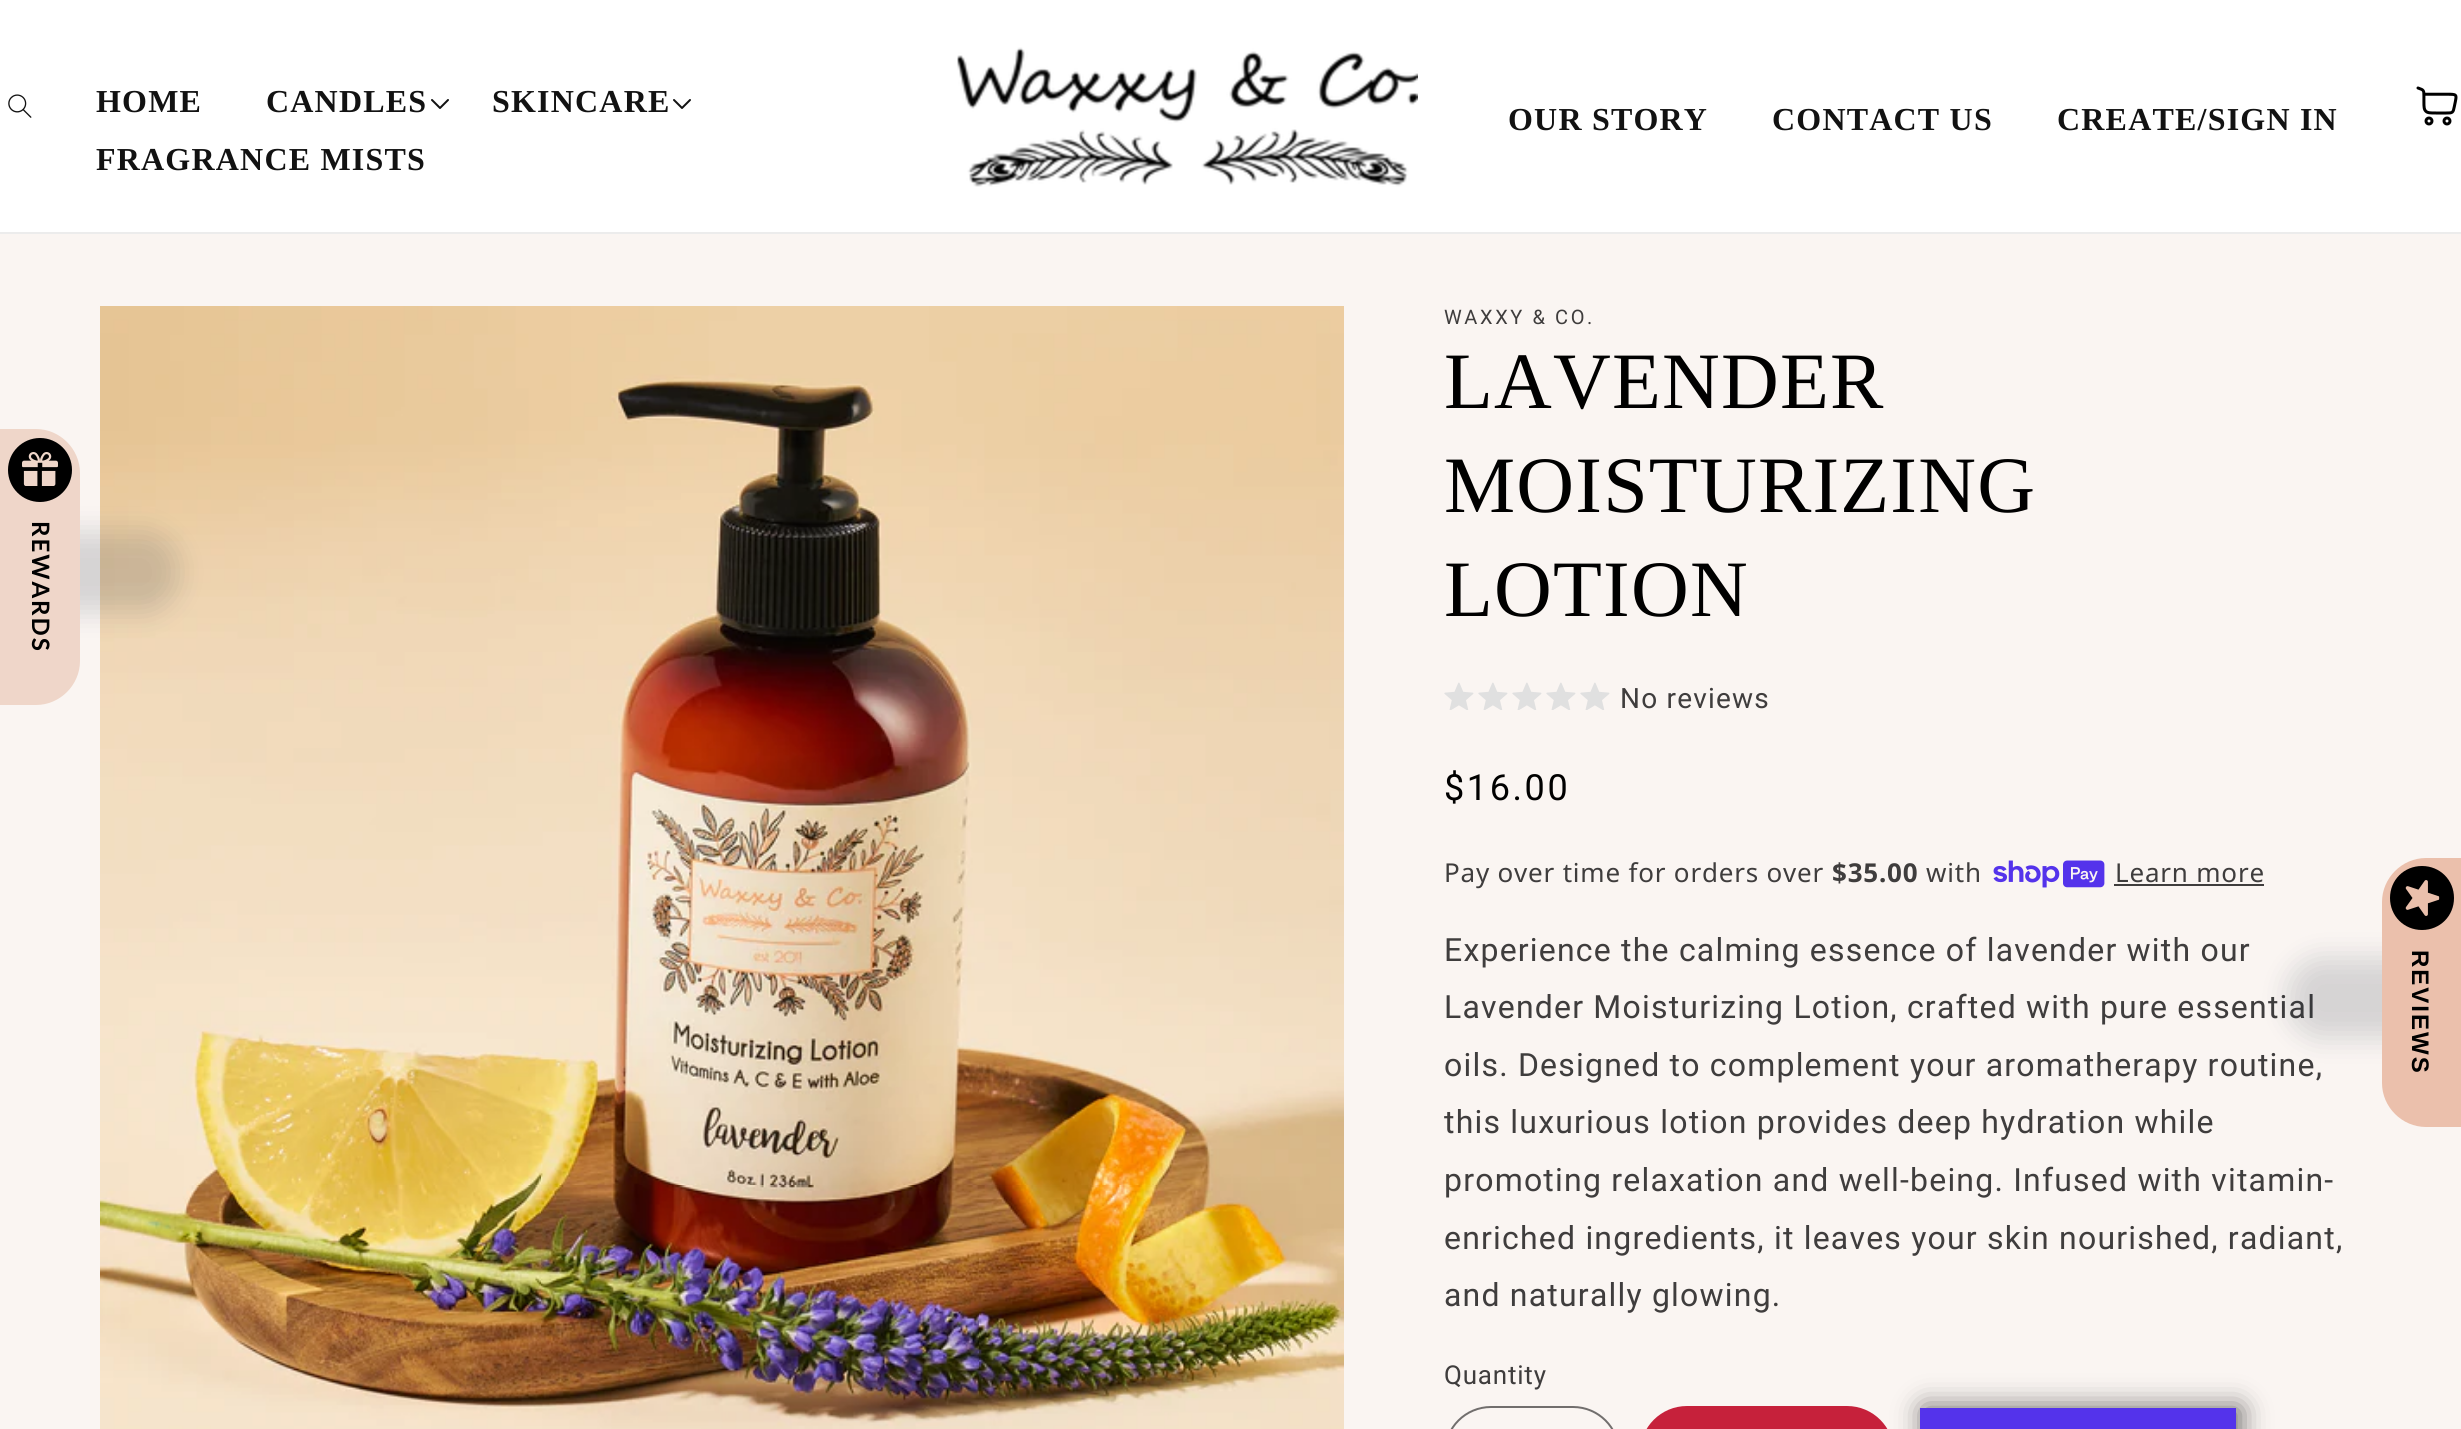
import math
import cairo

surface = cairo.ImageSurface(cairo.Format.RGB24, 2461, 1429)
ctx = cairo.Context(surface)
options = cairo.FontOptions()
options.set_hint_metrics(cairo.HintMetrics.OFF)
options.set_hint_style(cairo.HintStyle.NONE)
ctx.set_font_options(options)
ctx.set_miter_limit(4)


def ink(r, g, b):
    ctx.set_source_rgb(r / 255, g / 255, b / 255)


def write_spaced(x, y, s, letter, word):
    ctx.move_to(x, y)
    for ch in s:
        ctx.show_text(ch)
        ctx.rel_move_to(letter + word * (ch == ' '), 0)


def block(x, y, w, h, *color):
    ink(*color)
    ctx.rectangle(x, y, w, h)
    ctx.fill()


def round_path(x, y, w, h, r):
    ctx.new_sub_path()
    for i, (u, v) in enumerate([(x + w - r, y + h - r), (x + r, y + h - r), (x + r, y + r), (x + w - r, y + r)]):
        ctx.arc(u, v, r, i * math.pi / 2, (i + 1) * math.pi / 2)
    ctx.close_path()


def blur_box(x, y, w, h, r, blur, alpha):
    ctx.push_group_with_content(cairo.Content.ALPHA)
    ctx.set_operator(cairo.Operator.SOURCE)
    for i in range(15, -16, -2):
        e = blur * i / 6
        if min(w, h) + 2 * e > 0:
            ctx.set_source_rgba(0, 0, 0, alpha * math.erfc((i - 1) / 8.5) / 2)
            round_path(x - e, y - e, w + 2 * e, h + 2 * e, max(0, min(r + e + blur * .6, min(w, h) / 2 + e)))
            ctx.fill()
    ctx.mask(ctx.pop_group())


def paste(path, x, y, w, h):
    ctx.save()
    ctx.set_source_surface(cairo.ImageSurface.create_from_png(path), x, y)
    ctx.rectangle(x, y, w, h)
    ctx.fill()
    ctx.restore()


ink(255, 255, 255)
ctx.paint()
block(0, 232, 2461, 2, 236, 236, 236)
paste("pic1.png", 8, 94, 24, 24)
ctx.select_font_face("Liberation Serif", cairo.FontSlant.NORMAL, cairo.FontWeight.BOLD)
ctx.set_font_size(32)
ink(18, 18, 18)
write_spaced(96, 112, "HOME", 1.2, 0)
write_spaced(266, 112, "CANDLES", 1.2, 0)
paste("pic2.png", 431, 99, 18, 10)
write_spaced(492, 112, "SKINCARE", 1.2, 0)
paste("pic2.png", 673, 99, 18, 10)
write_spaced(96, 170, "FRAGRANCE MISTS", 1.2, 0)
paste("pic3.png", 957, 47, 461, 140)
write_spaced(1508, 130, "OUR STORY", 1.2, 0)
write_spaced(1772, 130, "CONTACT US", 1.2, 0)
write_spaced(2057, 130, "CREATE/SIGN IN", 1.2, 0)
paste("pic4.png", 2416, 86, 42, 40)
block(0, 234, 2461, 1195, 250, 245, 242)
paste("pic6.png", 100, 306, 1244, 1123)
ink(17, 34, 51)
blur_box(-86, 532, 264, 80, 44, 14, 0.16)
ink(239, 214, 201)
ctx.new_path()
ctx.move_to(80, 473)
ctx.line_to(80, 661)
ctx.curve_to(80, 685, 60, 705, 36, 705)
ctx.line_to(0, 705)
ctx.line_to(0, 429)
ctx.line_to(36, 429)
ctx.curve_to(60, 429, 80, 449, 80, 473)
ctx.close_path()
ctx.fill()
ink(0, 0, 0)
ctx.arc(40, 470, 32, 0, 2 * math.pi)
ctx.fill()
paste("pic5.png", 22, 452, 36, 34)
ctx.select_font_face("Lato", cairo.FontSlant.NORMAL, cairo.FontWeight.BOLD)
ctx.set_font_size(24)
ctx.save()
ctx.translate(32, 521)
ctx.rotate(90 * math.pi / 180)
write_spaced(0, 0, "REWARDS", 2, 0)
ctx.restore()
ctx.select_font_face("Roboto")
ctx.set_font_size(20)
ink(63, 61, 61)
write_spaced(1444, 324, "WAXXY & CO.", 2.6, 0)
ctx.select_font_face("Liberation Serif")
ctx.set_font_size(80)
ink(0, 0, 0)
write_spaced(1444, 408, "LAVENDER", 1.2, 0)
write_spaced(1444, 512, "MOISTURIZING", 1.2, 0)
write_spaced(1444, 616, "LOTION", 1.2, 0)
paste("pic7.png", 1444, 682, 30, 28)
paste("pic7.png", 1478, 682, 30, 28)
paste("pic7.png", 1512, 682, 30, 28)
paste("pic7.png", 1546, 682, 30, 28)
paste("pic7.png", 1580, 682, 30, 28)
ctx.select_font_face("Roboto")
ctx.set_font_size(28)
ink(63, 61, 61)
write_spaced(1620, 708, "No reviews", 1.2, 0)
ctx.set_font_size(36)
ink(0, 0, 0)
write_spaced(1444, 800, "$16.00", 2.6, 0)
ctx.select_font_face("Noto Sans")
ctx.set_font_size(26)
ink(63, 61, 61)
write_spaced(1444, 882, "Pay over time for orders over", 0.8, 0)
ctx.select_font_face("Noto Sans", cairo.FontSlant.NORMAL, cairo.FontWeight.BOLD)
write_spaced(1832, 882, "$35.00", 0.8, 0)
ctx.select_font_face("Noto Sans")
write_spaced(1926, 882, "with", 0.8, 0)
paste("pic8.png", 1993, 860, 112, 28)
write_spaced(2115, 882, "Learn more", 0.8, 0)
block(2114, 884, 150, 2, 63, 61, 61)
ctx.select_font_face("Roboto")
ctx.set_font_size(32)
write_spaced(1444, 961, "Experience the calming essence of lavender with our", 1.2, 0)
write_spaced(1444, 1018, "Lavender Moisturizing Lotion, crafted with pure essential", 1.2, 0)
write_spaced(1444, 1076, "oils. Designed to complement your aromatherapy routine,", 1.2, 0)
write_spaced(1444, 1133, "this luxurious lotion provides deep hydration while", 1.2, 0)
write_spaced(1444, 1191, "promoting relaxation and well-being. Infused with vitamin-", 1.2, 0)
write_spaced(1444, 1249, "enriched ingredients, it leaves your skin nourished, radiant,", 1.2, 0)
write_spaced(1444, 1306, "and naturally glowing.", 1.2, 0)
ctx.set_font_size(26)
write_spaced(1444, 1384, "Quantity", 0.8, 0)
round_path(1445, 1407, 174, 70, 46)
ink(113, 110, 109)
ctx.stroke()
ink(0, 0, 0)
blur_box(1924, 1408, 316, 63, 0, 14, 0.6)
block(1920, 1408, 316, 21, 84, 51, 235)
ink(198, 33, 59)
round_path(1640, 1406, 254, 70, 47)
ctx.fill()
ink(17, 34, 51)
blur_box(2288, 958, 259, 80, 44, 14, 0.16)
ink(235, 192, 172)
ctx.new_path()
ctx.move_to(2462, 858)
ctx.line_to(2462, 1127)
ctx.line_to(2426, 1127)
ctx.curve_to(2402, 1127, 2382, 1107, 2382, 1083)
ctx.line_to(2382, 902)
ctx.curve_to(2382, 878, 2402, 858, 2426, 858)
ctx.close_path()
ctx.fill()
ink(0, 0, 0)
ctx.new_path()
ctx.move_to(2454, 898)
ctx.curve_to(2454, 916, 2440, 930, 2422, 930)
ctx.curve_to(2404, 930, 2390, 916, 2390, 898)
ctx.curve_to(2390, 880, 2404, 866, 2422, 866)
ctx.curve_to(2440, 866, 2454, 880, 2454, 898)
ctx.close_path()
ctx.fill()
paste("pic9.png", 2405, 880, 35, 36)
ctx.select_font_face("Liberation Sans", cairo.FontSlant.NORMAL, cairo.FontWeight.BOLD)
ctx.set_font_size(24)
ctx.save()
ctx.translate(2412, 950)
ctx.rotate(90 * math.pi / 180)
write_spaced(0, 0, "REVIEWS", 2, 0)
ctx.restore()
surface.write_to_png("screenshot.png")
